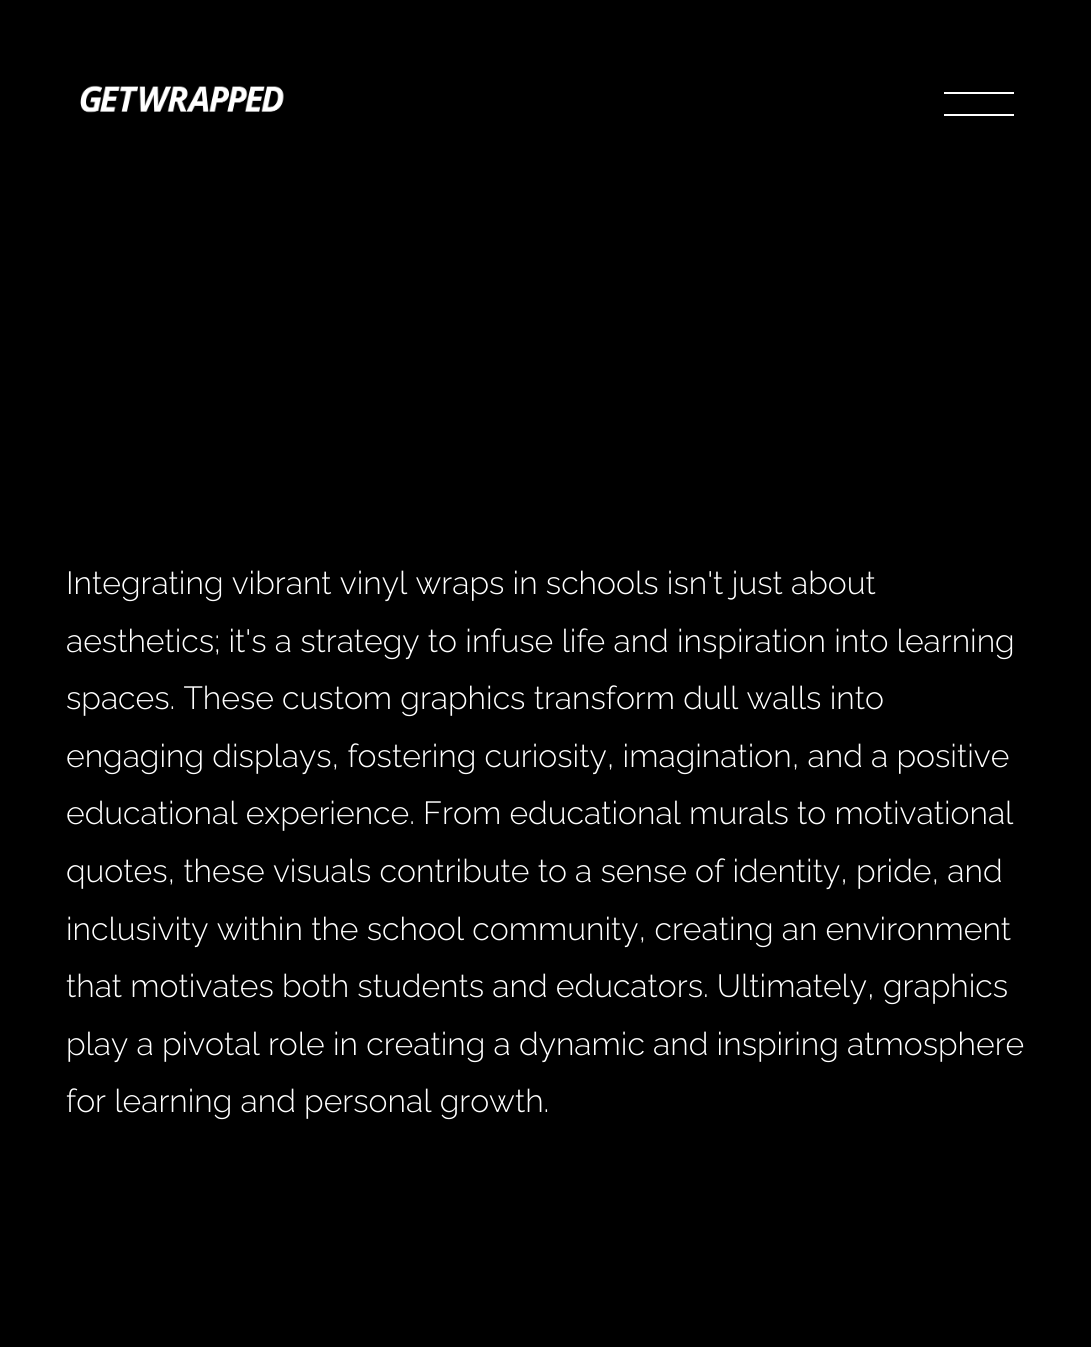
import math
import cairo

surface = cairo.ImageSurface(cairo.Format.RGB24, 1091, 1347)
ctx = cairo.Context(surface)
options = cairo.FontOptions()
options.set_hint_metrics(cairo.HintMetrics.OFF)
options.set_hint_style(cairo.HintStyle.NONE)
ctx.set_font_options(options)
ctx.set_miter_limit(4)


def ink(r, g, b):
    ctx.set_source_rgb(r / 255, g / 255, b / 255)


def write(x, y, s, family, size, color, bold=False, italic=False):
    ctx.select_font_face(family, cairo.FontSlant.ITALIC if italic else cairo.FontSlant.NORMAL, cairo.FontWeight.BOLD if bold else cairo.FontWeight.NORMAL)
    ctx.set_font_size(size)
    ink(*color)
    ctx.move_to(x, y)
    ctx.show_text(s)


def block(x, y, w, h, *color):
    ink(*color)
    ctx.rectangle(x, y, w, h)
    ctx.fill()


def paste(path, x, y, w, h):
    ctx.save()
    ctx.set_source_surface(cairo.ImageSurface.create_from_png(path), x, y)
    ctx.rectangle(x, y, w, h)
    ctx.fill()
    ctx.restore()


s1 = dict(family="Raleway Light", size=32, color=(255, 255, 255))

ink(0, 0, 0)
ctx.paint()
paste("pic1.png", 80, 85, 204, 28)
block(944, 92, 70, 2, 255, 255, 255)
block(944, 114, 70, 2, 255, 255, 255)
write(66, 594, "Integrating vibrant vinyl wraps in schools isn't just about", **s1)
write(66, 652, "aesthetics; it's a strategy to infuse life and inspiration into learning", **s1)
write(66, 709, "spaces. These custom graphics transform dull walls into", **s1)
write(66, 767, "engaging displays, fostering curiosity, imagination, and a positive", **s1)
write(66, 824, "educational experience. From educational murals to motivational", **s1)
write(66, 882, "quotes, these visuals contribute to a sense of identity, pride, and", **s1)
write(66, 940, "inclusivity within the school community, creating an environment", **s1)
write(66, 997, "that motivates both students and educators. Ultimately, graphics", **s1)
write(66, 1055, "play a pivotal role in creating a dynamic and inspiring atmosphere", **s1)
write(66, 1112, "for learning and personal growth.", **s1)
surface.write_to_png("screenshot.png")
